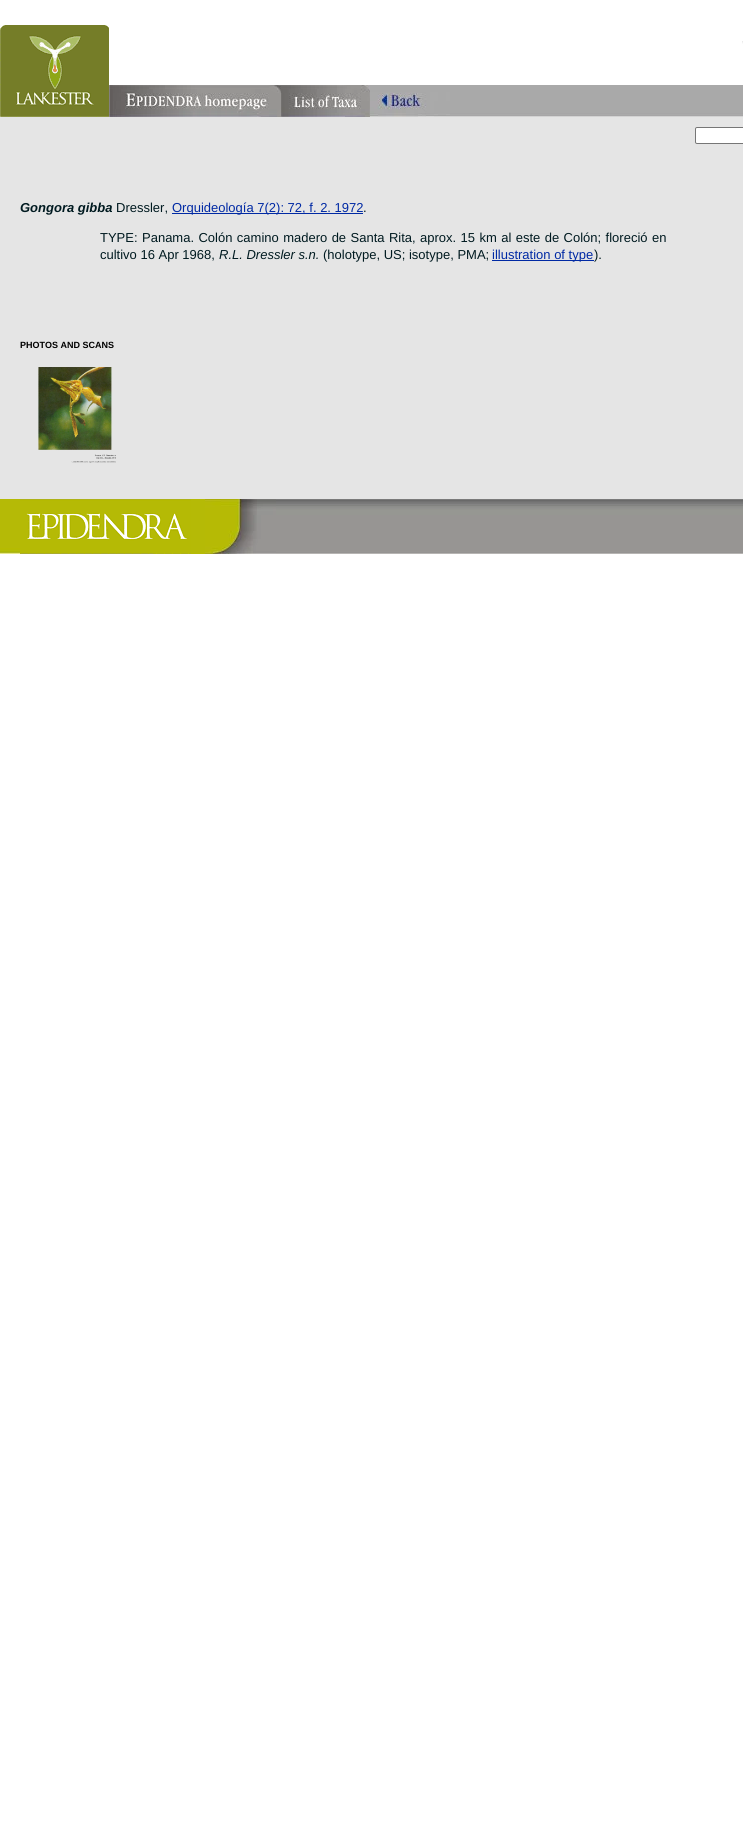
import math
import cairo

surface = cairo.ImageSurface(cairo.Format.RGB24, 743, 1832)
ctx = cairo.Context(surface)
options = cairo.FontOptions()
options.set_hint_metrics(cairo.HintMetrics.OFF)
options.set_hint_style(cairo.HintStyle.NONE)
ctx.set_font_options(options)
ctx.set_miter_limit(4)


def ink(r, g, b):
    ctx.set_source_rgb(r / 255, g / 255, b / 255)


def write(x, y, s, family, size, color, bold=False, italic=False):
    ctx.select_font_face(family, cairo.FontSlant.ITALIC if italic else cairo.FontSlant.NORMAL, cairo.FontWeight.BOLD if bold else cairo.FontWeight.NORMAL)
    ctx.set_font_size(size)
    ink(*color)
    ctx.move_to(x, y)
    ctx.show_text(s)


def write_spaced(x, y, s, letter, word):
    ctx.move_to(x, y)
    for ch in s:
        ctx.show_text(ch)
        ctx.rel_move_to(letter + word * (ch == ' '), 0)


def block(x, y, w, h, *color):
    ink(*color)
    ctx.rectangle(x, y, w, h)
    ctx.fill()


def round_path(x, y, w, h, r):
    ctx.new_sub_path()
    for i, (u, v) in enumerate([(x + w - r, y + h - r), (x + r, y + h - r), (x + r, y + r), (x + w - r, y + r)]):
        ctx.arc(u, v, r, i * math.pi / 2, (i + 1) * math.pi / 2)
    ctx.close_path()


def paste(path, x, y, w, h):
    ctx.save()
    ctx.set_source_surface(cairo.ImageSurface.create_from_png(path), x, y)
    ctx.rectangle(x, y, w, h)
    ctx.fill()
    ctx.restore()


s1 = dict(family="Liberation Sans", size=13, color=(0, 26, 32), bold=True, italic=True)
s2 = dict(family="Liberation Sans", size=13, color=(0, 26, 32))
s3 = dict(family="Liberation Sans", size=13, color=(0, 41, 164))
s4 = dict(family="Liberation Sans", size=13, color=(0, 26, 32), italic=True)
s5 = dict(family="Liberation Sans", size=9, color=(0, 0, 0), bold=True)

ink(255, 255, 255)
ctx.paint()
paste("pic1.png", 0, 25, 109, 92)
paste("pic2.png", 109, 85, 172, 32)
paste("pic3.png", 281, 85, 89, 32)
paste("pic4.png", 370, 85, 90, 32)
paste("pic5.png", 370, 92, 80, 25)
paste("pic6.png", 742, 41, 1, 3)
paste("pic7.png", 460, 85, 283, 32)
block(0, 117, 743, 382, 229, 229, 229)
ink(255, 255, 255)
round_path(695.5, 127.5, 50, 16, 1.5)
ctx.fill_preserve()
ink(118, 118, 118)
ctx.set_line_width(1)
ctx.stroke()
write(20, 212, "Gongora gibba", **s1)
write(116, 212, "Dressler,", **s2)
block(172, 213, 191, 1, 0, 41, 164)
write(172, 212, "Orquideología 7(2): 72, f. 2. 1972", **s3)
write(363, 212, ".", **s2)
write(100, 242, "TYPE:", **s2)
write_spaced(142, 242, "Panama. Colón camino madero de Santa Rita, aprox. 15 km al este de Colón; floreció en", 0, 0.8)
write(100, 259, "cultivo 16 Apr 1968,", **s2)
write(219, 259, "R.L. Dressler s.n.", **s4)
write(323, 259, "(holotype, US; isotype, PMA;", **s2)
block(492, 260, 102, 1, 0, 41, 164)
write(492, 259, "illustration of type", **s3)
write(594, 259, ").", **s2)
write(20, 348, "PHOTOS AND SCANS", **s5)
paste("pic8.png", 38, 367, 78, 96)
block(0, 499, 205, 55, 181, 186, 6)
paste("pic9.png", 0, 548, 20, 6)
paste("pic10.png", 20, 499, 171, 55)
paste("pic11.png", 276, 499, 467, 55)
paste("pic12.png", 205, 499, 71, 55)
surface.write_to_png("screenshot.png")
